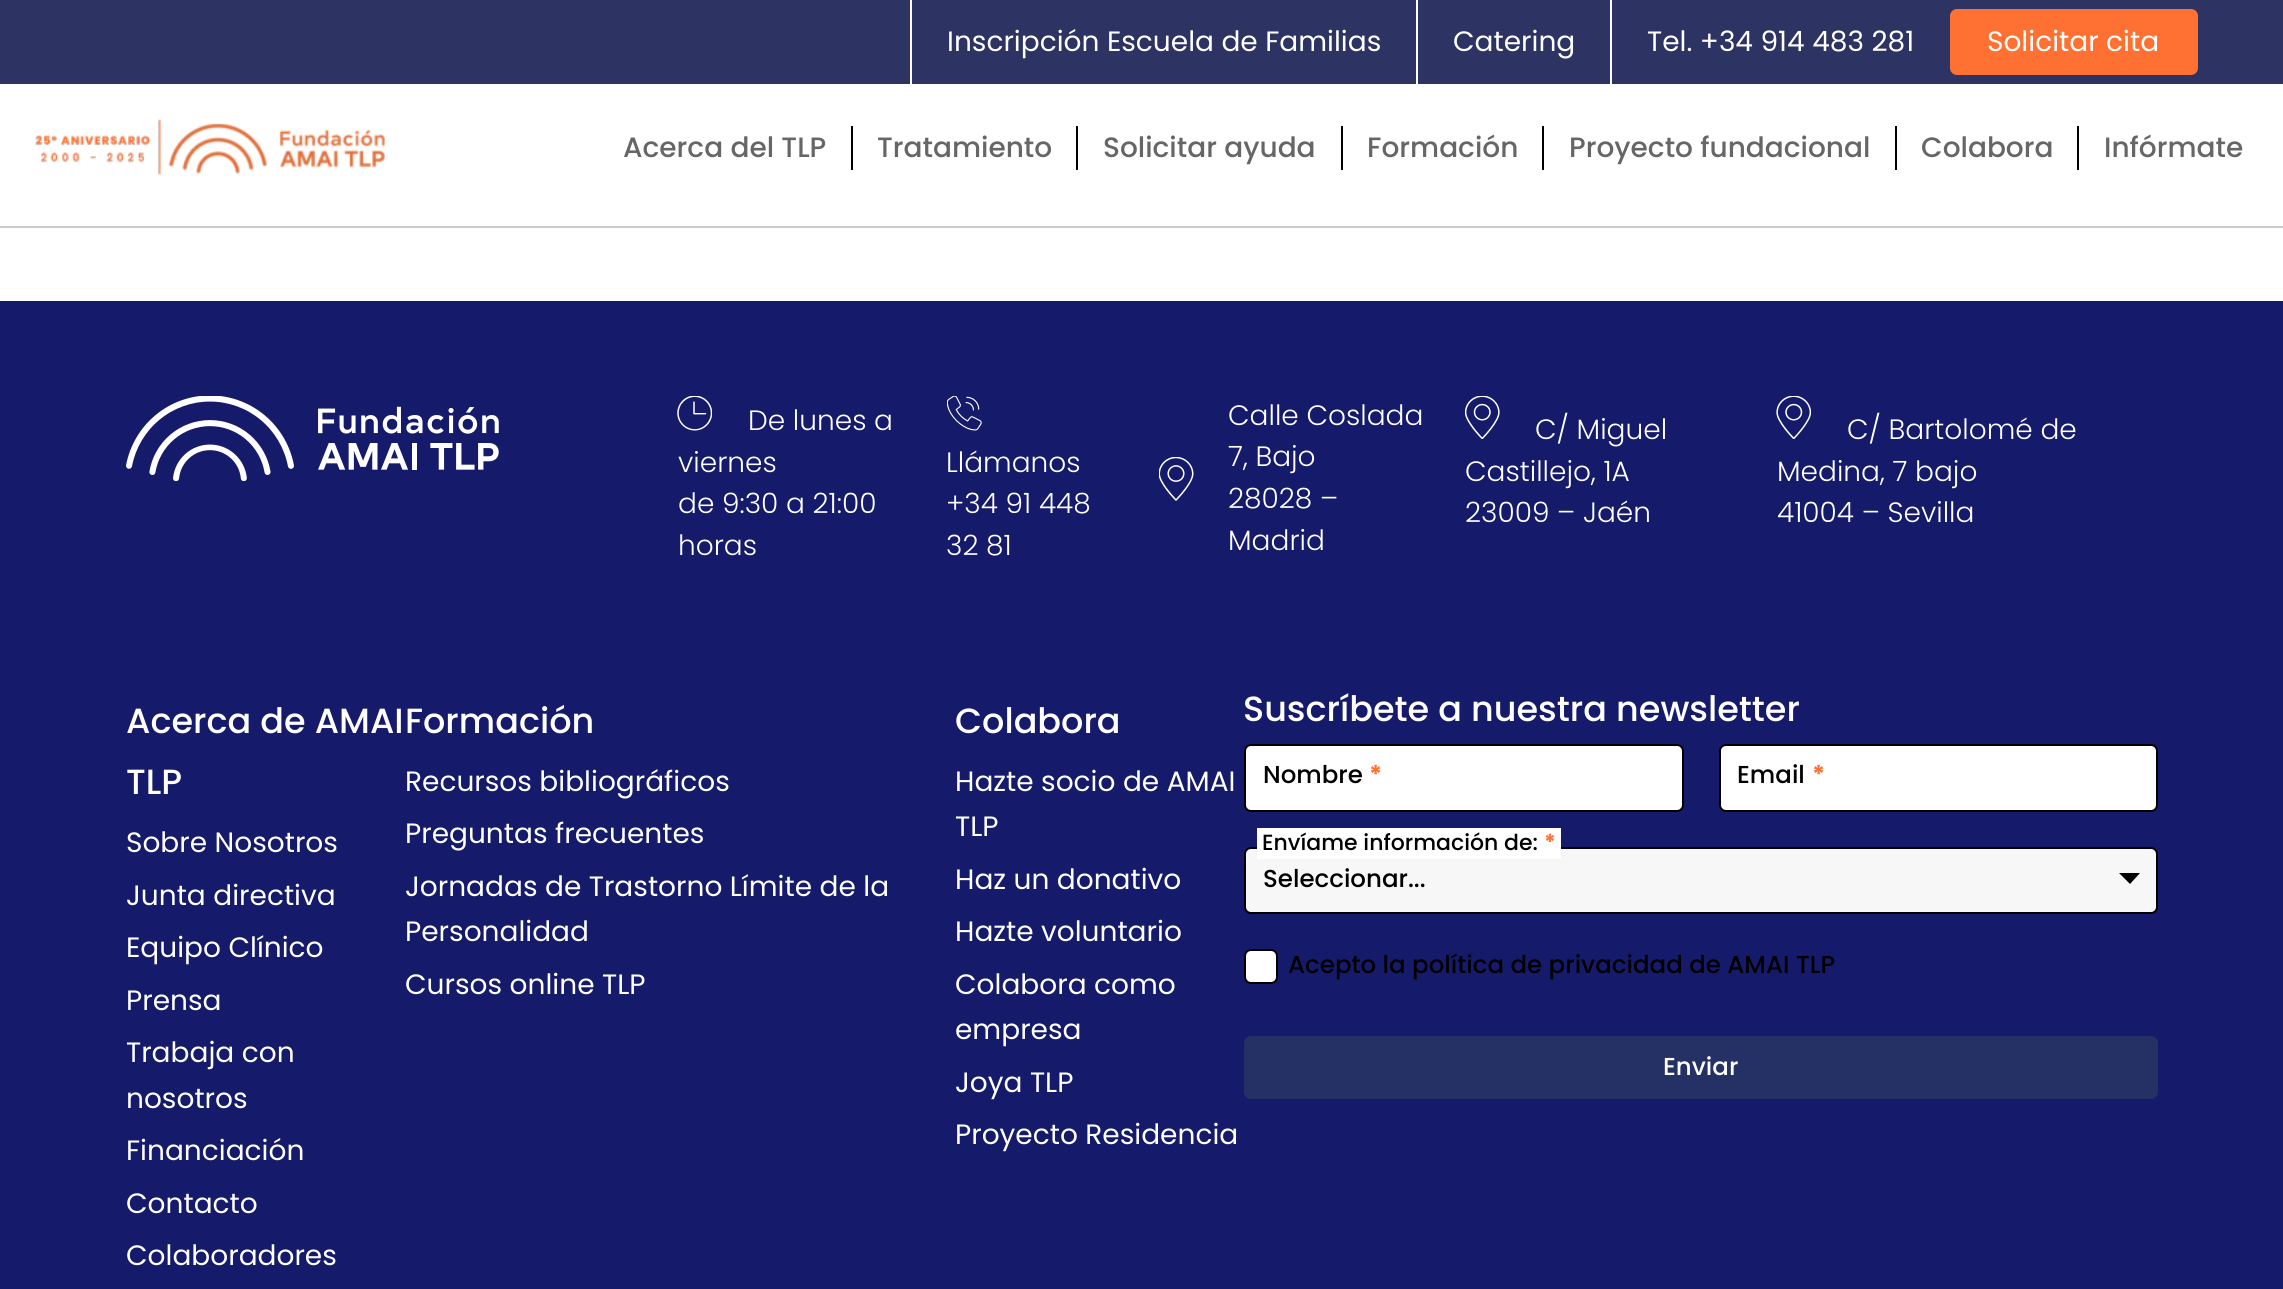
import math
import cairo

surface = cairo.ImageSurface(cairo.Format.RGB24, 2283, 1289)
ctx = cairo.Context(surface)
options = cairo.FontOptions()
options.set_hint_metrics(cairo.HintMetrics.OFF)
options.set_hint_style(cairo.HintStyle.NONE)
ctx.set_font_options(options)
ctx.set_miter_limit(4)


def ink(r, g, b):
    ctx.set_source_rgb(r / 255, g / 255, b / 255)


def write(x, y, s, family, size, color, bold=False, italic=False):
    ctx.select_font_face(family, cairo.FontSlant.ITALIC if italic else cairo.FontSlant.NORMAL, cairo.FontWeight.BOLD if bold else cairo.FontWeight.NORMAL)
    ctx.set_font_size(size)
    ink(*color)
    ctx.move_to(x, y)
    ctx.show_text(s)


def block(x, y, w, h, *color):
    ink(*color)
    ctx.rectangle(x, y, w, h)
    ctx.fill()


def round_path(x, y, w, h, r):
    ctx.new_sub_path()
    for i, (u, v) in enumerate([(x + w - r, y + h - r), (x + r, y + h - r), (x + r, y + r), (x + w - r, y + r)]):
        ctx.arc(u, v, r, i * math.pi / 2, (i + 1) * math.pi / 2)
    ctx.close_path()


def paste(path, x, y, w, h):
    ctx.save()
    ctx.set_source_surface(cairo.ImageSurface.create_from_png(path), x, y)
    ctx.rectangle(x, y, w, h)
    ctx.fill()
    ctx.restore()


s1 = dict(family="Poppins", size=28, color=(255, 255, 255))
s2 = dict(family="Poppins Medium", size=28, color=(102, 102, 102))
s3 = dict(family="Poppins Light", size=28, color=(255, 255, 255))
s4 = dict(family="Poppins Medium", size=35, color=(255, 255, 255))
s5 = dict(family="Poppins Medium", size=24.5, color=(0, 0, 0))
s6 = dict(family="Poppins", size=24.5, color=(255, 113, 51), bold=True)
s7 = dict(family="Poppins Medium", size=22, color=(0, 0, 0))
s8 = dict(family="Poppins", size=22, color=(255, 113, 51), bold=True)
s9 = dict(family="Poppins Medium", size=24.5, color=(255, 255, 255))

ink(255, 255, 255)
ctx.paint()
block(0, 0, 2283, 84, 45, 51, 98)
block(910, 0, 2, 84, 255, 255, 255)
write(947, 51, "Inscripción Escuela de Familias", **s1)
block(1610, 0, 2, 84, 255, 255, 255)
block(1416, 0, 2, 84, 255, 255, 255)
write(1453, 51, "Catering", **s1)
write(1647, 51, "Tel. +34 914 483 281", **s1)
ink(255, 113, 51)
round_path(1950, 9, 248, 66, 7)
ctx.fill()
write(1987, 51, "Solicitar cita", **s1)
block(0, 226, 2283, 2, 204, 204, 204)
paste("pic1.png", 35, 119, 350, 56)
write(623, 157, "Acerca del TLP", **s2)
block(851, 126, 2, 44, 0, 0, 0)
write(877, 157, "Tratamiento", **s2)
block(1076, 126, 2, 44, 0, 0, 0)
write(1103, 157, "Solicitar ayuda", **s2)
block(1341, 126, 2, 44, 0, 0, 0)
write(1367, 157, "Formación", **s2)
block(1542, 126, 2, 44, 0, 0, 0)
write(1569, 157, "Proyecto fundacional", **s2)
block(1895, 126, 2, 44, 0, 0, 0)
write(1921, 157, "Colabora", **s2)
block(2077, 126, 2, 44, 0, 0, 0)
write(2104, 157, "Infórmate", **s2)
block(0, 301, 2283, 988, 21, 26, 106)
paste("pic2.png", 126, 396, 373, 85)
paste("pic3.png", 677, 396, 35, 35)
write(748, 430, "De lunes a", **s3)
write(678, 472, "viernes", **s3)
write(678, 513, "de 9:30 a 21:00", **s3)
write(678, 555, "horas", **s3)
paste("pic4.png", 947, 396, 35, 35)
write(946, 472, "Llámanos", **s3)
write(946, 513, "+34 91 448", **s3)
write(946, 555, "32 81", **s3)
write(1228, 425, "Calle Coslada", **s3)
paste("pic5.png", 1159, 457, 35, 44)
write(1228, 466, "7, Bajo", **s3)
write(1228, 508, "28028 –", **s3)
write(1228, 550, "Madrid", **s3)
paste("pic6.png", 1465, 396, 35, 43)
write(1535, 439, "C/ Miguel", **s3)
write(1465, 481, "Castillejo, 1A", **s3)
write(1465, 522, "23009 – Jaén", **s3)
paste("pic7.png", 1776, 396, 35, 43)
write(1847, 439, "C/ Bartolomé de", **s3)
write(1777, 481, "Medina, 7 bajo", **s3)
write(1777, 522, "41004 – Sevilla", **s3)
write(126, 733, "Acerca de AMAI", **s4)
write(126, 794, "TLP", **s4)
write(126, 852, "Sobre Nosotros", **s1)
write(126, 905, "Junta directiva", **s1)
write(126, 957, "Equipo Clínico", **s1)
write(126, 1010, "Prensa", **s1)
write(126, 1062, "Trabaja con", **s1)
write(126, 1108, "nosotros", **s1)
write(126, 1160, "Financiación", **s1)
write(126, 1213, "Contacto", **s1)
write(126, 1265, "Colaboradores", **s1)
write(405, 733, "Formación", **s4)
write(405, 791, "Recursos bibliográficos", **s1)
write(405, 843, "Preguntas frecuentes", **s1)
write(405, 896, "Jornadas de Trastorno Límite de la", **s1)
write(405, 941, "Personalidad", **s1)
write(405, 994, "Cursos online TLP", **s1)
write(955, 733, "Colabora", **s4)
write(955, 791, "Hazte socio de AMAI", **s1)
write(955, 836, "TLP", **s1)
write(955, 889, "Haz un donativo", **s1)
write(955, 941, "Hazte voluntario", **s1)
write(955, 994, "Colabora como", **s1)
write(955, 1039, "empresa", **s1)
write(955, 1092, "Joya TLP", **s1)
write(955, 1144, "Proyecto Residencia", **s1)
write(1243, 721, "Suscríbete a nuestra newsletter", **s4)
round_path(1245, 745, 438, 66, 6)
ctx.fill_preserve()
ink(0, 0, 0)
ctx.stroke()
write(1263, 783, "Nombre", **s5)
write(1369, 783, "*", **s6)
ink(255, 255, 255)
round_path(1720, 745, 437, 66, 6)
ctx.fill_preserve()
ink(0, 0, 0)
ctx.stroke()
write(1737, 783, "Email", **s5)
write(1812, 783, "*", **s6)
ink(247, 247, 247)
round_path(1245, 848, 912, 65, 6)
ctx.fill_preserve()
ink(0, 0, 0)
ctx.stroke()
block(1257, 828, 304, 31, 255, 255, 255)
write(1262, 850, "Envíame información de:", **s7)
write(1544, 850, "*", **s8)
write(1263, 887, "Seleccionar...", **s5)
ctx.new_path()
ctx.move_to(2119, 873)
ctx.line_to(2140, 873)
ctx.line_to(2130, 884)
ctx.close_path()
ctx.fill()
ink(255, 255, 255)
round_path(1245, 950, 32, 33, 6)
ctx.fill_preserve()
ink(0, 0, 0)
ctx.stroke()
write(1288, 973, "Acepto la política de privacidad de AMAI TLP", **s5)
ink(37, 48, 100)
round_path(1244, 1036, 914, 63, 7)
ctx.fill()
write(1663, 1075, "Enviar", **s9)
surface.write_to_png("screenshot.png")
